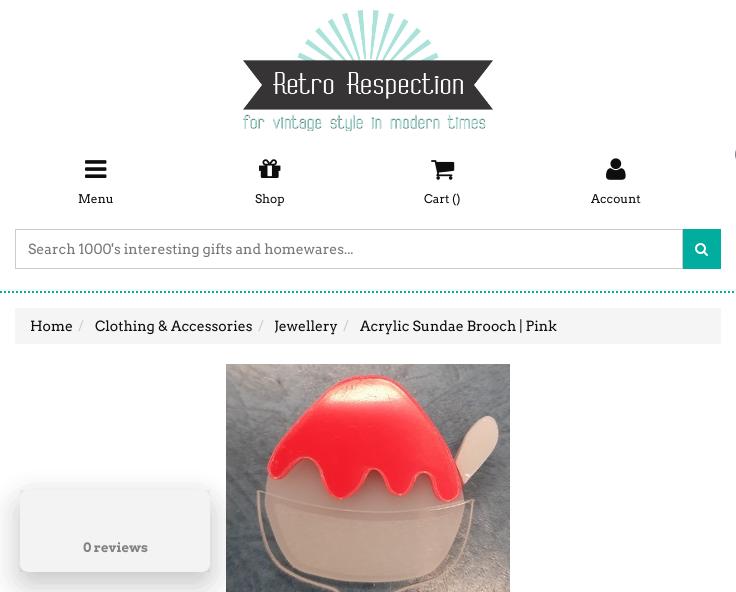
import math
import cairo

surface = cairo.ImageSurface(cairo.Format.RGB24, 736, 592)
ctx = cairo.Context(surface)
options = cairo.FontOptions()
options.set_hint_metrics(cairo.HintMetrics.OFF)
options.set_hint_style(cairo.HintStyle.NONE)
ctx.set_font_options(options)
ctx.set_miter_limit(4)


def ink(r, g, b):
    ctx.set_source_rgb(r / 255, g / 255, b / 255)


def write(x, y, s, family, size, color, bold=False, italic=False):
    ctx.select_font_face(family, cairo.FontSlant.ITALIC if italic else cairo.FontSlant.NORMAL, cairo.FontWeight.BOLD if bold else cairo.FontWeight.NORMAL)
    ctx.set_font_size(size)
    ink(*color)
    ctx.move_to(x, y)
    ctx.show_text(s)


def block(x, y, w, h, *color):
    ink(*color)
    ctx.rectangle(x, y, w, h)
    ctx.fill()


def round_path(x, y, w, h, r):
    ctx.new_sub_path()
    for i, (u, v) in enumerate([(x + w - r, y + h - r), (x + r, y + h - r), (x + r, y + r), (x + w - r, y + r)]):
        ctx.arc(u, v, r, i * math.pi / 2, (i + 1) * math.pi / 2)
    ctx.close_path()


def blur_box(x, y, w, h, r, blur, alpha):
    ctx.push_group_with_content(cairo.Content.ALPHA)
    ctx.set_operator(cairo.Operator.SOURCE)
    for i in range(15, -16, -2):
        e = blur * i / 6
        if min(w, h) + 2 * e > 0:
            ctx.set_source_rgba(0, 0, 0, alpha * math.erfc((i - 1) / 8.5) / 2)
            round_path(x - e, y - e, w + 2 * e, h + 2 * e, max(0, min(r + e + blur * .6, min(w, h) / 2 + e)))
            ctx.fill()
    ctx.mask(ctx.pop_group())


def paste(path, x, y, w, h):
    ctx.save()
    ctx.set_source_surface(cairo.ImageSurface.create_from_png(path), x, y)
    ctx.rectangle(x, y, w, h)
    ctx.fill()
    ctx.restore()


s1 = dict(family="Arvo", size=12, color=(14, 14, 15))
s2 = dict(family="Arvo", size=14, color=(119, 119, 119))
s3 = dict(family="Arvo", size=14, color=(14, 14, 15))
s4 = dict(family="Arvo", size=14, color=(204, 204, 204))
s5 = dict(family="Arvo", size=13, color=(130, 130, 130), bold=True)

ink(255, 255, 255)
ctx.paint()
ctx.new_path()
ctx.move_to(0, 292)
ctx.line_to(736, 292)
ink(0, 173, 158)
ctx.set_dash([2, 2])
ctx.stroke()
paste("pic1.png", 243, 10, 250, 121)
paste("pic2.png", 85, 160, 22, 18)
write(78, 203, "Menu", **s1)
paste("pic3.png", 259, 159, 22, 19)
write(255, 203, "Shop", **s1)
ink(107, 128, 167)
round_path(735, 142, 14, 25, 12.5)
ctx.fill()
paste("pic4.png", 431, 160, 24, 20)
write(424, 203, "Cart ()", **s1)
paste("pic5.png", 606, 158, 20, 22)
write(591, 203, "Account", **s1)
ctx.rectangle(15.5, 229.5, 667, 39)
ink(204, 204, 204)
ctx.set_line_width(1)
ctx.set_dash([])
ctx.stroke()
ctx.save()
ctx.rectangle(28, 241, 642, 16)
ctx.clip()
write(28, 254, "Search 1000's interesting gifts and homewares...", **s2)
ctx.restore()
block(683, 229, 38, 40, 0, 173, 158)
paste("pic6.png", 695, 243, 13, 13)
block(0, 289, 736, 2, 247, 247, 247)
block(15, 308, 706, 36, 245, 245, 245)
write(30, 331, "Home", **s3)
write(78, 331, "/", **s4)
write(95, 331, "Clothing & Accessories", **s3)
write(258, 331, "/", **s4)
write(274, 331, "Jewellery", **s3)
write(343, 331, "/", **s4)
write(360, 331, "Acrylic Sundae Brooch | Pink", **s3)
paste("pic7.png", 226, 364, 288, 228)
ctx.save()
ctx.set_fill_rule(cairo.FillRule.EVEN_ODD)
ctx.new_path()
ctx.move_to(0, 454)
ctx.line_to(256, 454)
ctx.line_to(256, 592)
ctx.line_to(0, 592)
ctx.close_path()
ctx.move_to(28, 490)
ctx.line_to(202, 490)
ctx.curve_to(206.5, 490, 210, 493.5, 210, 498)
ctx.line_to(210, 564)
ctx.curve_to(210, 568.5, 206.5, 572, 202, 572)
ctx.line_to(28, 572)
ctx.curve_to(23.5, 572, 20, 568.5, 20, 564)
ctx.line_to(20, 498)
ctx.curve_to(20, 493.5, 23.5, 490, 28, 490)
ctx.close_path()
ctx.clip()
ink(0, 0, 0)
blur_box(20, 500, 190, 82, 8, 15, 0.15)
ctx.restore()
ctx.save()
ctx.set_fill_rule(cairo.FillRule.EVEN_ODD)
ctx.new_path()
ctx.move_to(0, 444)
ctx.line_to(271, 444)
ctx.line_to(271, 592)
ctx.line_to(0, 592)
ctx.close_path()
ctx.move_to(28, 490)
ctx.line_to(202, 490)
ctx.curve_to(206.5, 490, 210, 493.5, 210, 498)
ctx.line_to(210, 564)
ctx.curve_to(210, 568.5, 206.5, 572, 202, 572)
ctx.line_to(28, 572)
ctx.curve_to(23.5, 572, 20, 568.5, 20, 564)
ctx.line_to(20, 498)
ctx.curve_to(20, 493.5, 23.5, 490, 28, 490)
ctx.close_path()
ctx.clip()
ink(0, 0, 0)
blur_box(20, 505, 190, 82, 8, 20, 0.1)
ctx.restore()
ctx.set_source_rgba(0.067, 0.067, 0.067, 0.05)
ctx.rectangle(20, 490, 190, 82)
ctx.fill()
write(83, 552, "0 reviews", **s5)
surface.write_to_png("screenshot.png")
